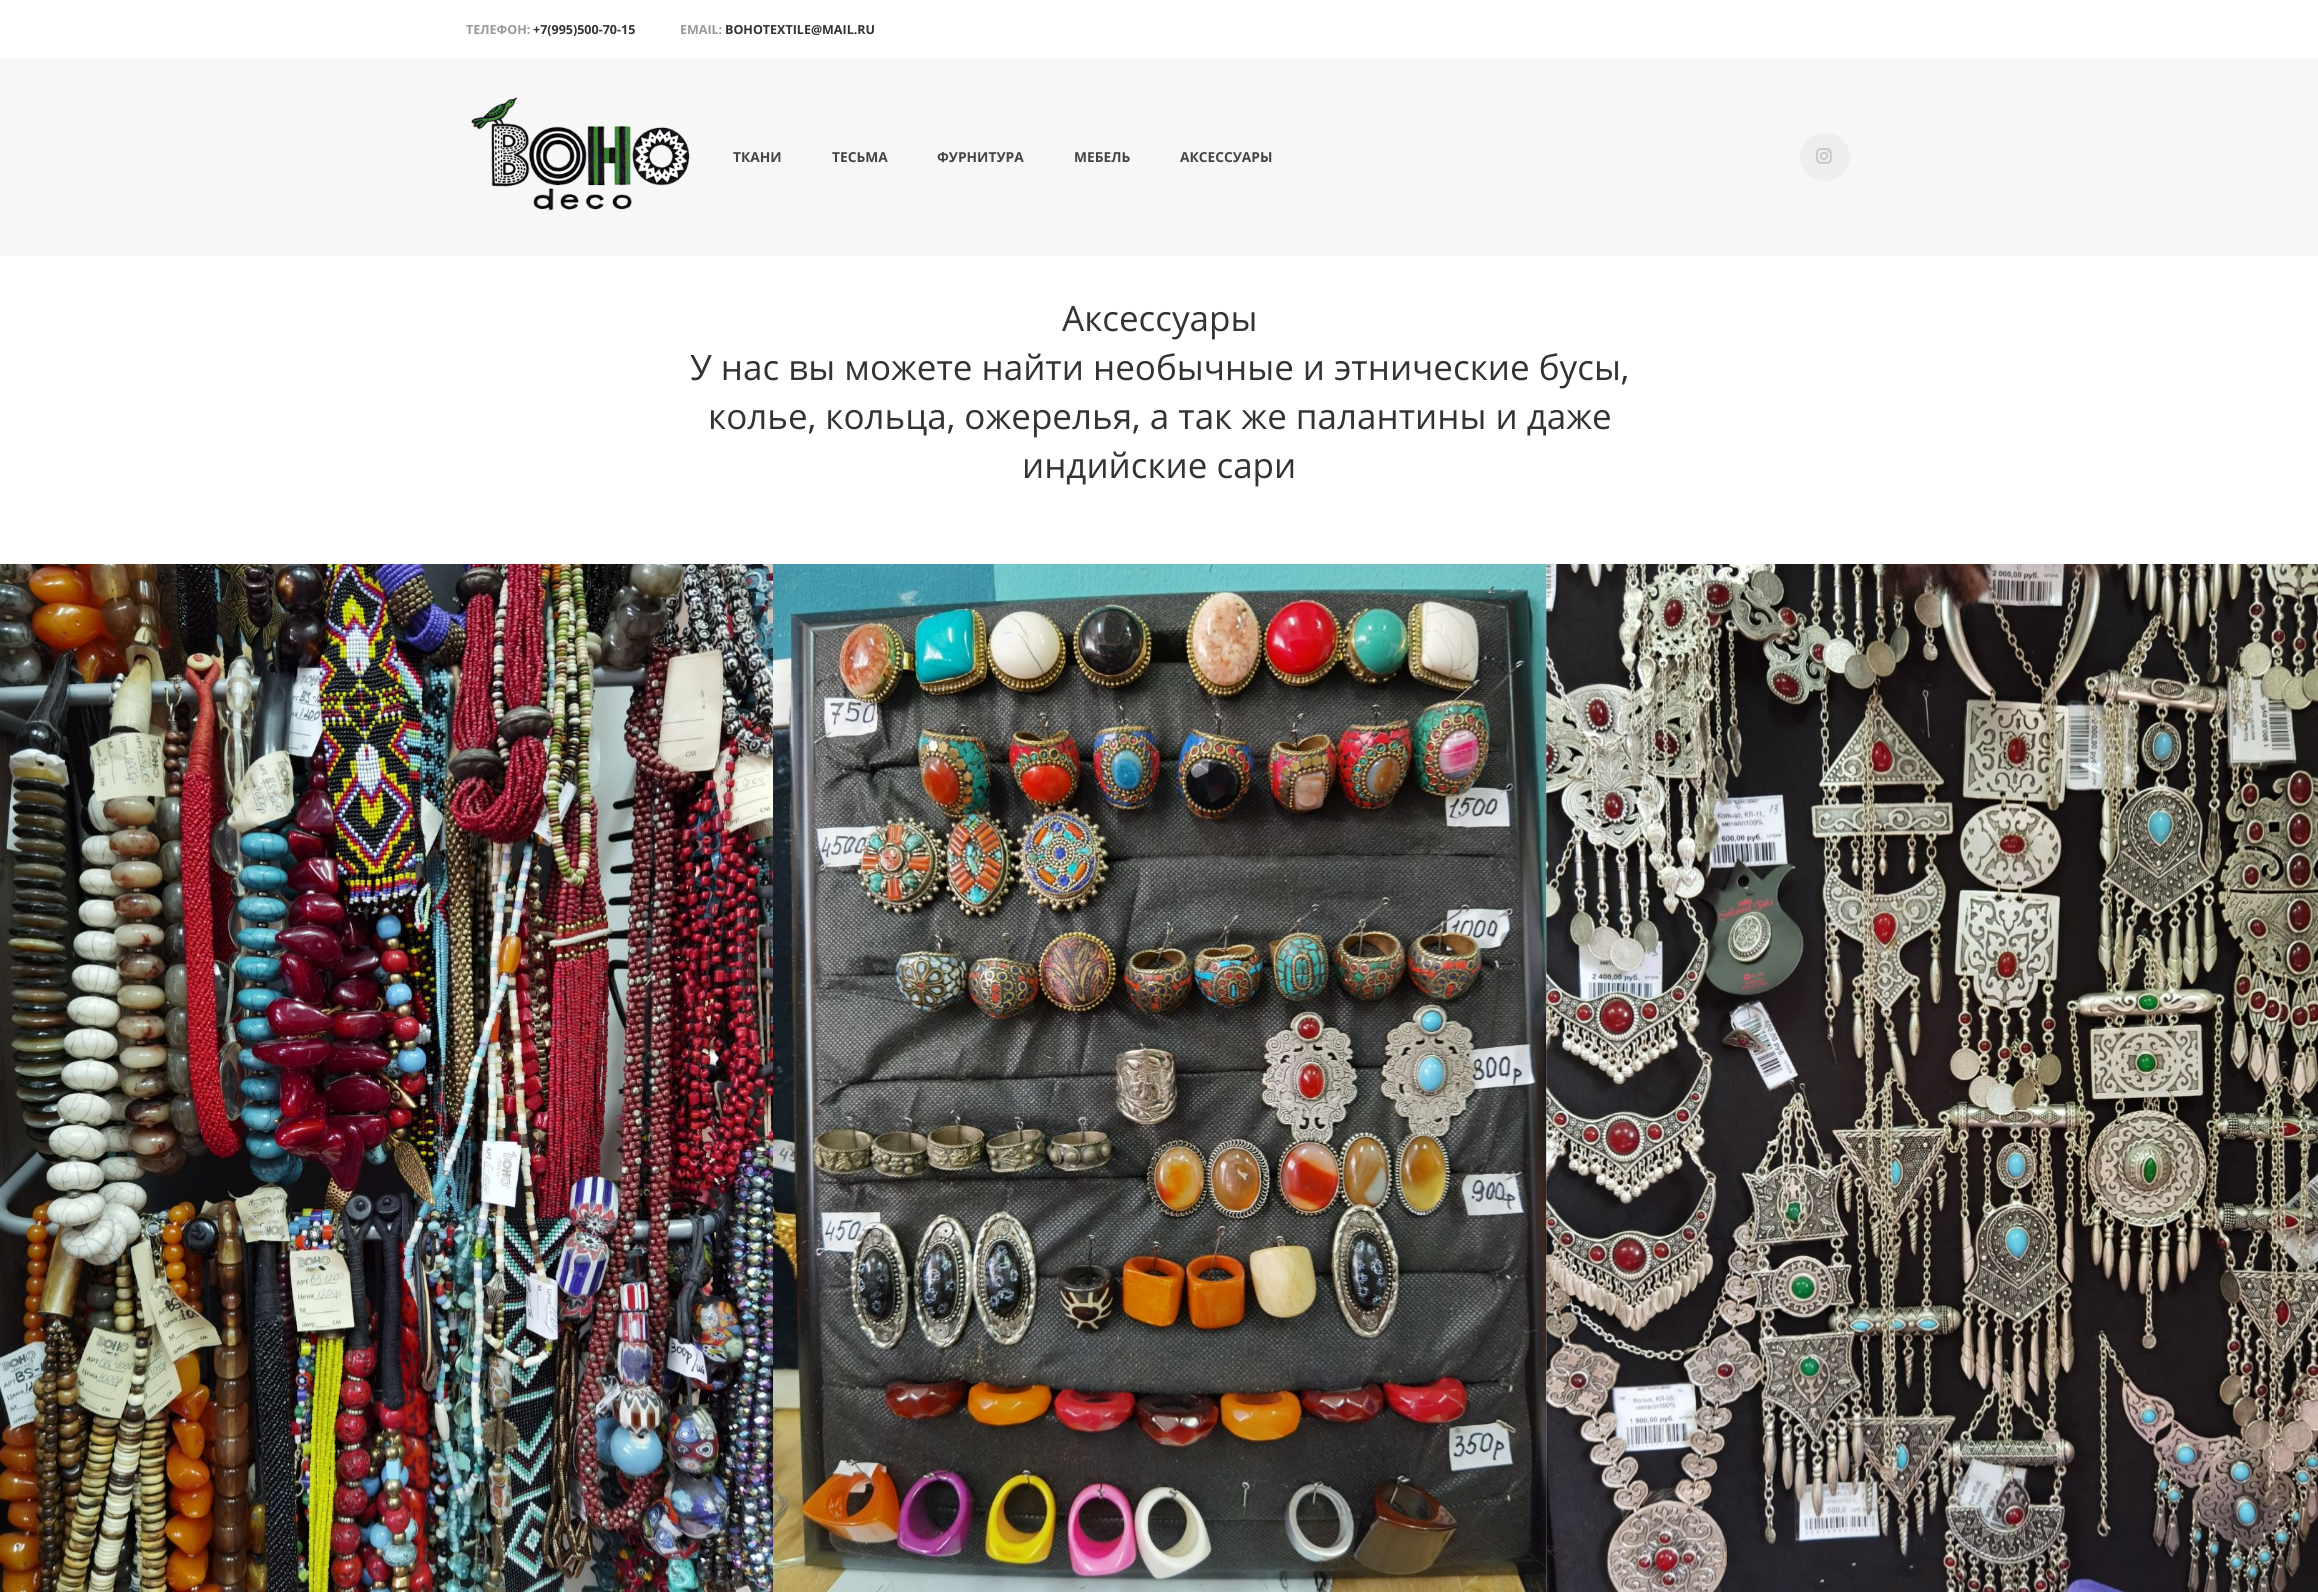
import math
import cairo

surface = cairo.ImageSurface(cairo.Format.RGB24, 2318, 1592)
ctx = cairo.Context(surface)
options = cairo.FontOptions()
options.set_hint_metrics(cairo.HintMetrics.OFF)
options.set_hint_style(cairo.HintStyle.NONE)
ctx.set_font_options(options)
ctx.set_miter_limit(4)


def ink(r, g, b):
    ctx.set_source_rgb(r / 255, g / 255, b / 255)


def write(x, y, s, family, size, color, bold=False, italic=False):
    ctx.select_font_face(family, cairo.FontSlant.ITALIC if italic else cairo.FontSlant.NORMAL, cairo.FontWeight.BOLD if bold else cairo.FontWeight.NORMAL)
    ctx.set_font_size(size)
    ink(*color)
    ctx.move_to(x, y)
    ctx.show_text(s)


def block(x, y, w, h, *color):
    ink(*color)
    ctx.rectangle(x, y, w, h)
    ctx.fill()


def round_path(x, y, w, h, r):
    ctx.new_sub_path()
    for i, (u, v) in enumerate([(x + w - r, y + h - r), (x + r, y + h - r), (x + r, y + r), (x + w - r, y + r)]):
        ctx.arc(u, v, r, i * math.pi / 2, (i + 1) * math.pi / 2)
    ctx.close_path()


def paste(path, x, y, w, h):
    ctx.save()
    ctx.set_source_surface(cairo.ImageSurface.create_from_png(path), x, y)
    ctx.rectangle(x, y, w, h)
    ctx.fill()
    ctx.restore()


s1 = dict(family="Open Sans", size=12.5, color=(153, 153, 153), bold=True)
s2 = dict(family="Open Sans", size=12.5, color=(51, 51, 51), bold=True)
s3 = dict(family="Open Sans", size=13.75, color=(68, 68, 68), bold=True)
s4 = dict(family="Open Sans", size=35, color=(51, 51, 51))

ink(255, 255, 255)
ctx.paint()
write(466, 34, "ТЕЛЕФОН:", **s1)
write(533, 34, "+7(995)500-70-15", **s2)
write(680, 34, "EMAIL:", **s1)
write(725, 34, "BOHOTEXTILE@MAIL.RU", **s2)
block(0, 58, 2318, 198, 247, 247, 247)
paste("pic1.png", 471, 97, 220, 114)
write(733, 162, "ТКАНИ", **s3)
write(832, 162, "ТЕСЬМА", **s3)
write(937, 162, "ФУРНИТУРА", **s3)
write(1074, 162, "МЕБЕЛЬ", **s3)
write(1180, 162, "АКСЕССУАРЫ", **s3)
ink(238, 238, 238)
round_path(1800, 133, 50, 48, 24)
ctx.fill()
paste("pic2.png", 1816, 148, 16, 16)
write(1062, 331, "Аксессуары", **s4)
write(690, 380, "У нас вы можете найти необычные и этнические бусы,", **s4)
write(708, 429, "колье, кольца, ожерелья, а так же палантины и даже", **s4)
write(1022, 478, "индийские сари", **s4)
paste("pic3.png", 0, 564, 773, 1028)
paste("pic4.png", 773, 564, 774, 1028)
paste("pic5.png", 1546, 564, 772, 1028)
surface.write_to_png("screenshot.png")
